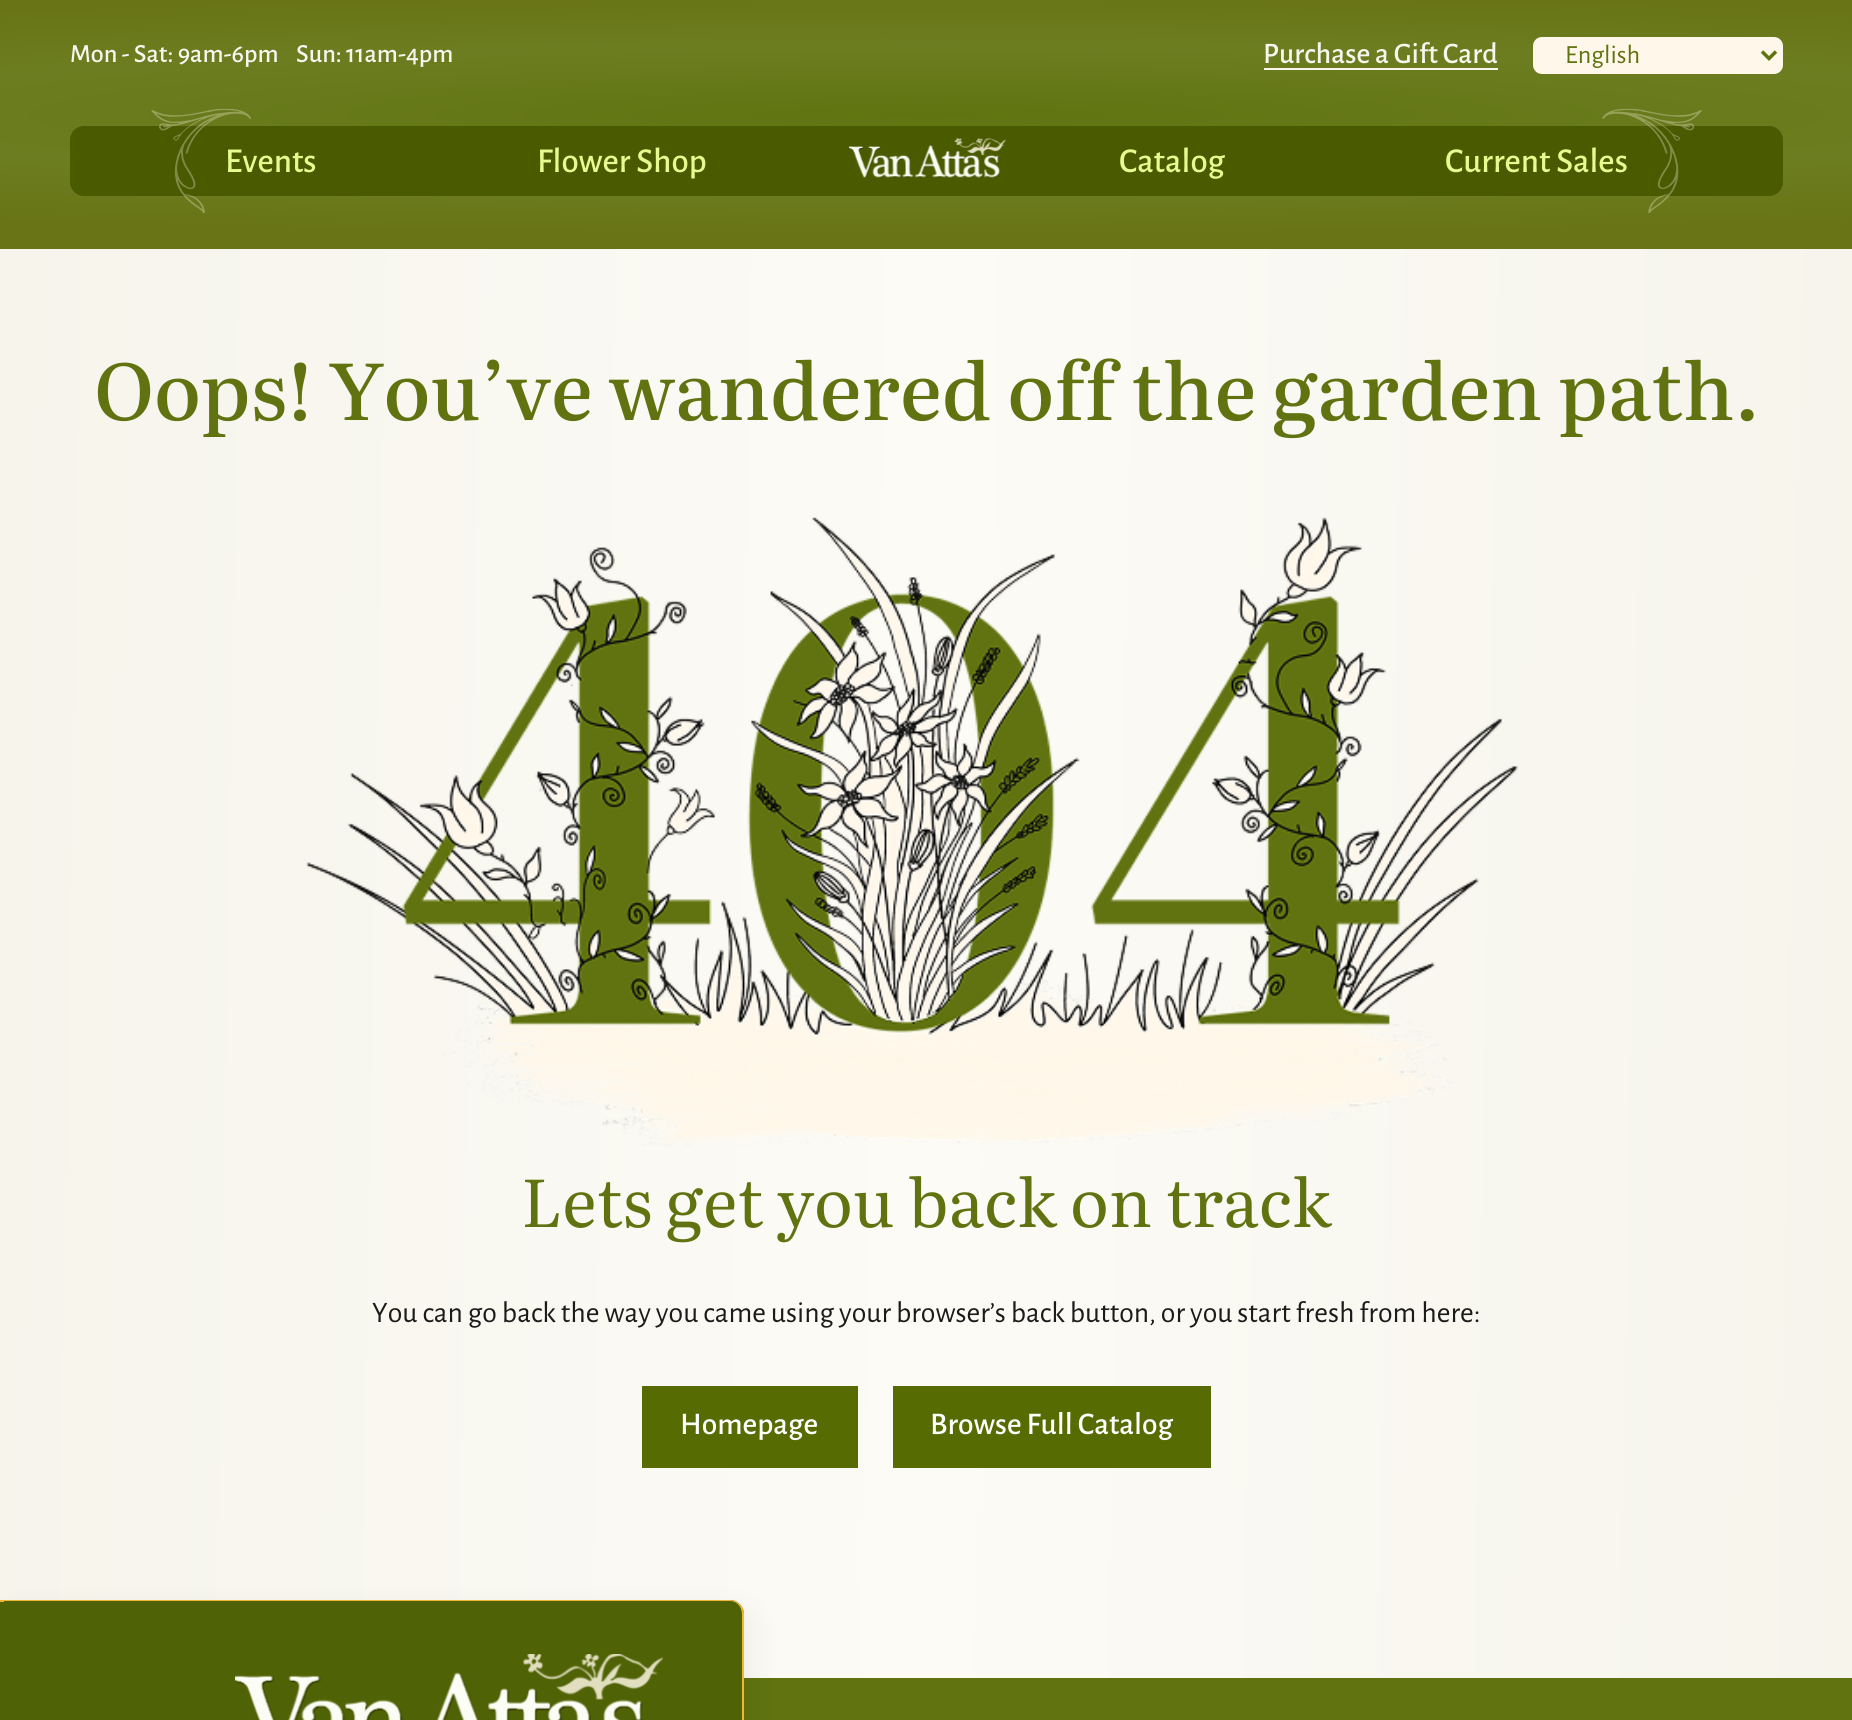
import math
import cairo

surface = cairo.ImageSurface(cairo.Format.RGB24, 1852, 1720)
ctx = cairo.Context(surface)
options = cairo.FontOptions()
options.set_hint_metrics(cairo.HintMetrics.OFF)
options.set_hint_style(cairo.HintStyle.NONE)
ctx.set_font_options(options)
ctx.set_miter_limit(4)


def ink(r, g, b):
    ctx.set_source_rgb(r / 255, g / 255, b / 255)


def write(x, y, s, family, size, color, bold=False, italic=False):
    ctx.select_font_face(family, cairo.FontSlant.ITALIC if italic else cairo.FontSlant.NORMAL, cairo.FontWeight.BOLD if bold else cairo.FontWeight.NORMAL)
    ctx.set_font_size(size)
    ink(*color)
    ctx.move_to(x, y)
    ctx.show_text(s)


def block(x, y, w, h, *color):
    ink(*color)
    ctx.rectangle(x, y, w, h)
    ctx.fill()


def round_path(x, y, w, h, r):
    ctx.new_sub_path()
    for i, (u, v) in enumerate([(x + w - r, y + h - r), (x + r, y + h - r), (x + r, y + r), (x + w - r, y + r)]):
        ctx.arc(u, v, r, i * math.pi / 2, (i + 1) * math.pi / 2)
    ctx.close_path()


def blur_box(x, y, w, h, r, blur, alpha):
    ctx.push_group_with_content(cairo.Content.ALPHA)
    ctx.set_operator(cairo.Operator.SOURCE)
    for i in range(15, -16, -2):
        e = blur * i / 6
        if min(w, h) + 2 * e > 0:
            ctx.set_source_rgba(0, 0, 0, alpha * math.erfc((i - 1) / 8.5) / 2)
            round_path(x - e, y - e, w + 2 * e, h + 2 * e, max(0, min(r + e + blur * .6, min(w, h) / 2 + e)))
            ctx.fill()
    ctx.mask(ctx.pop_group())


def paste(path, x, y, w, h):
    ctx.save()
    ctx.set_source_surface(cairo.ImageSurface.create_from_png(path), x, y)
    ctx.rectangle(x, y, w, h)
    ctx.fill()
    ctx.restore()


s1 = dict(family="Alegreya Sans Medium", size=26.25, color=(248, 245, 238))
s2 = dict(family="Alegreya Sans Medium", size=29.75, color=(248, 245, 238))
s3 = dict(family="Alegreya Sans", size=26.25, color=(96, 115, 16))
s4 = dict(family="Alegreya Sans Medium", size=35, color=(232, 249, 144))
s5 = dict(family="Literata Medium", size=78.75, color=(96, 115, 16))
s6 = dict(family="Literata", size=66.5, color=(96, 115, 16))
s7 = dict(family="Alegreya Sans", size=29.75, color=(27, 27, 27))
s8 = dict(family="Alegreya Sans Medium", size=31.5, color=(255, 255, 255))

ink(255, 255, 255)
ctx.paint()
gradient = cairo.LinearGradient(-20, 1125, 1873, 1158)
gradient.add_color_stop_rgba(0.01, 0.965, 0.957, 0.922, 1)
gradient.add_color_stop_rgba(0.5, 0.988, 0.984, 0.965, 1)
gradient.add_color_stop_rgba(0.99, 0.965, 0.957, 0.922, 1)
ctx.set_source(gradient)
ctx.rectangle(0, 249, 1852, 1429)
ctx.fill()
gradient = cairo.RadialGradient(0, 0, 0, 0, 0, 1)
gradient.set_matrix(cairo.Matrix(1 / 1987, 0, 0, 1 / 124, -1 * 927 / 1987, -1 * 115 / 124))
gradient.add_color_stop_rgba(0, 0.376, 0.455, 0.063, 1)
gradient.add_color_stop_rgba(0.54, 0.424, 0.49, 0.129, 1)
gradient.add_color_stop_rgba(1, 0.408, 0.455, 0.082, 1)
ctx.set_source(gradient)
ctx.rectangle(0, 0, 1852, 249)
ctx.fill()
write(70, 62, "Mon - Sat: 9am-6pm", **s1)
write(296, 62, "Sun: 11am-4pm", **s1)
write(1263, 63, "Purchase a Gift Card", **s2)
block(1264, 68, 234, 2, 249, 246, 239)
ink(255, 247, 233)
round_path(1533, 37, 250, 37, 9)
ctx.fill()
ctx.new_path()
ctx.move_to(1762, 51.5)
ctx.line_to(1769, 58.5)
ctx.line_to(1776, 51.5)
ink(96, 115, 16)
ctx.set_line_width(3.5)
ctx.stroke()
write(1565, 63, "English", **s3)
ink(73, 90, 0)
round_path(70, 126, 1713, 70, 14)
ctx.fill()
paste("pic1.png", 849, 138, 157, 40)
write(225, 172, "Events", **s4)
paste("pic2.png", 151, 108, 100, 106)
write(537, 172, "Flower Shop", **s4)
write(1119, 172, "Catalog", **s4)
write(1445, 172, "Current Sales", **s4)
paste("pic3.png", 1602, 108, 100, 106)
write(94, 420, "Oops! You’ve wandered off the garden path.", **s5)
paste("pic4.png", 306, 517, 1212, 629)
write(521, 1227, "Lets get you back on track", **s6)
write(372, 1322, "You can go back the way you came using your browser’s back button, or you start fresh from here:", **s7)
block(642, 1386, 216, 82, 87, 107, 3)
write(680, 1434, "Homepage", **s8)
block(893, 1386, 318, 82, 87, 107, 3)
write(930, 1434, "Browse Full Catalog", **s8)
block(744, 1678, 1108, 42, 96, 115, 16)
ink(0, 0, 0)
blur_box(9, 1608, 744, 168, 14, 14, 0.05)
ink(80, 98, 6)
ctx.new_path()
ctx.move_to(0, 1600)
ctx.line_to(730, 1600)
ctx.curve_to(737.5, 1600, 744, 1606.5, 744, 1614)
ctx.line_to(744, 1720)
ctx.curve_to(744, 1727.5, 737.5, 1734, 730, 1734)
ctx.line_to(0, 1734)
ctx.close_path()
ctx.fill()
ink(241, 183, 57)
ctx.set_fill_rule(cairo.FillRule.EVEN_ODD)
ctx.new_path()
ctx.move_to(0, 1600)
ctx.line_to(730, 1600)
ctx.curve_to(737, 1600, 744, 1606, 744, 1614)
ctx.line_to(744, 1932)
ctx.curve_to(744, 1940, 737, 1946, 730, 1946)
ctx.line_to(0, 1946)
ctx.close_path()
ctx.move_to(0, 1601)
ctx.line_to(730, 1601)
ctx.curve_to(737, 1601, 742, 1607, 742, 1614)
ctx.line_to(742, 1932)
ctx.curve_to(742, 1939, 737, 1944, 730, 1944)
ctx.line_to(0, 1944)
ctx.close_path()
ctx.fill()
block(0, 1600, 4, 1, 80, 98, 6)
block(0, 1600, 4, 2, 241, 183, 57)
paste("pic5.png", 235, 1654, 428, 66)
surface.write_to_png("screenshot.png")
